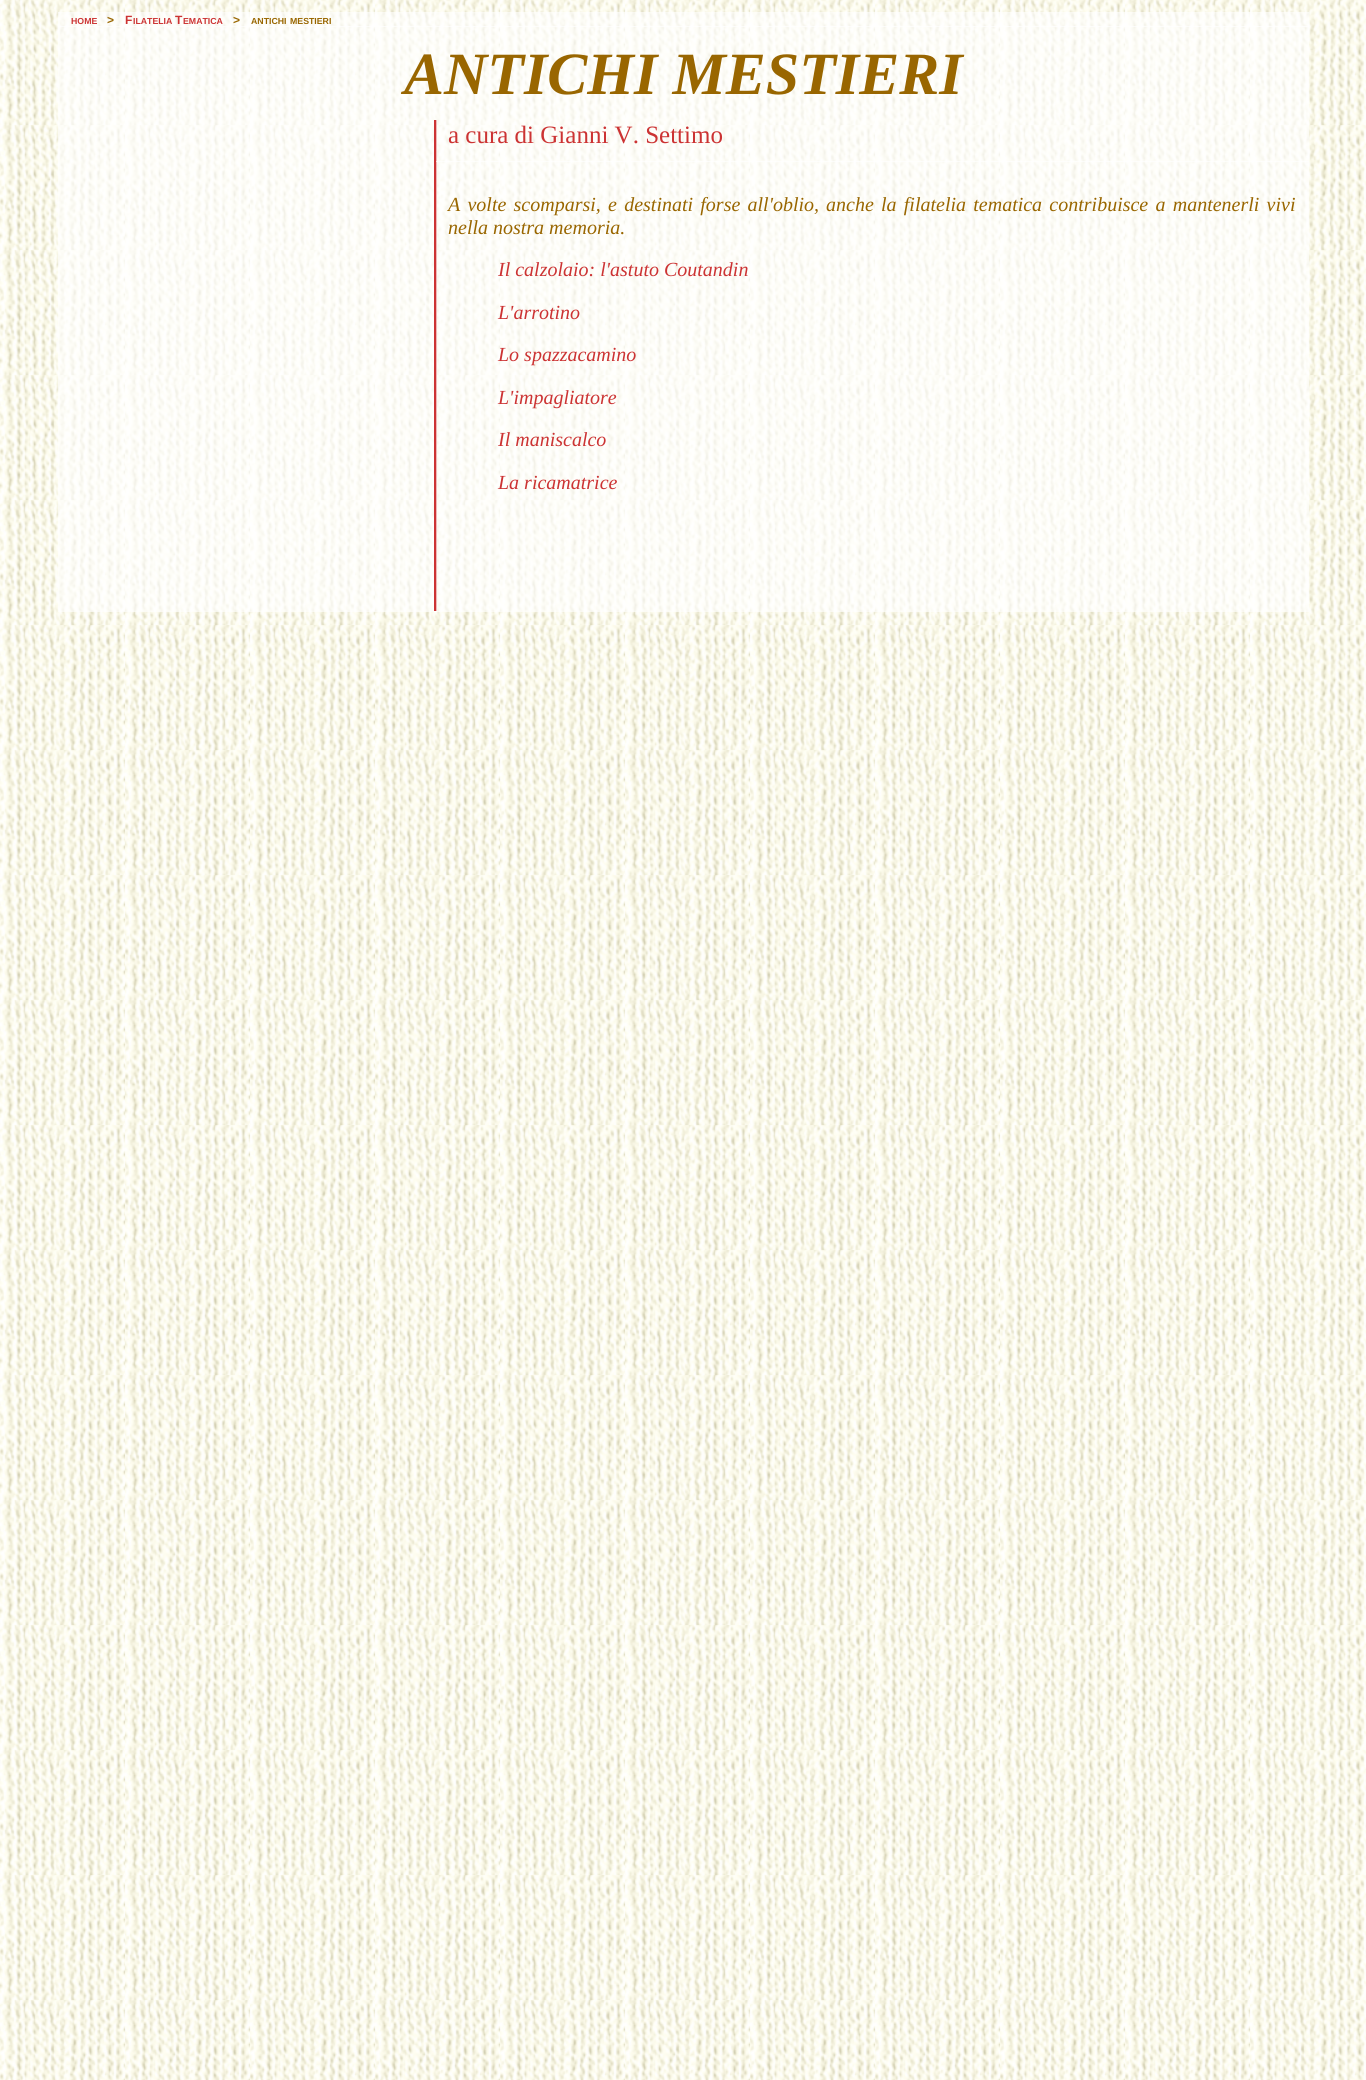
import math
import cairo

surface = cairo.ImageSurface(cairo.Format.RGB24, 1366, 2080)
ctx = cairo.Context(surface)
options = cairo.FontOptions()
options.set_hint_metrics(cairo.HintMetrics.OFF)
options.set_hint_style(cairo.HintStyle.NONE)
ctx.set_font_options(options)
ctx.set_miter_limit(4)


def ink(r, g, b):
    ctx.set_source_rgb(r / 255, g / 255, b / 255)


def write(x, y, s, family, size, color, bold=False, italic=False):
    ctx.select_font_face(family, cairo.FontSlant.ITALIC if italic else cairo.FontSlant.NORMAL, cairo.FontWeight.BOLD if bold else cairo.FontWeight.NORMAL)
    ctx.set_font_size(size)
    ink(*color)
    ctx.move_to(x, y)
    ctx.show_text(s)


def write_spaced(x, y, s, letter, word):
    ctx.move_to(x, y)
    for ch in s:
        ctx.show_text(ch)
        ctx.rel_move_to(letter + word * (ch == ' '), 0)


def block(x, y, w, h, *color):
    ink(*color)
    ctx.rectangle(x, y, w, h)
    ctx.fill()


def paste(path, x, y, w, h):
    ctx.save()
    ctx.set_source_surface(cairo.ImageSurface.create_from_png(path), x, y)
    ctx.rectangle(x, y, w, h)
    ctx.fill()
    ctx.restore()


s1 = dict(family="Liberation Sans", size=8.75, color=(204, 51, 51), bold=True)
s2 = dict(family="Liberation Sans", size=12, color=(153, 102, 0), bold=True)
s3 = dict(family="Liberation Sans", size=12, color=(204, 51, 51), bold=True)
s4 = dict(family="Liberation Sans", size=8.75, color=(153, 102, 0), bold=True)
s5 = dict(family="Liberation Serif", size=60, color=(153, 102, 0), bold=True, italic=True)
s6 = dict(family="Liberation Serif", size=25, color=(204, 51, 51))
s7 = dict(family="Liberation Serif", size=20, color=(153, 102, 0), italic=True)
s8 = dict(family="Liberation Serif", size=20, color=(204, 51, 51), italic=True)

ink(255, 255, 255)
ctx.paint()
paste("pic1.png", 0, 0, 1366, 2080)
ctx.set_source_rgba(1, 1, 1, 0.66)
ctx.rectangle(58, 12, 1251, 15)
ctx.fill()
write(71, 24, "HOME", **s1)
write(107, 24, ">", **s2)
write(125, 24, "F", **s3)
write(133, 24, "ILATELIA", **s1)
write(175, 24, "T", **s3)
write(183, 24, "EMATICA", **s1)
write(233, 24, ">", **s2)
write(251, 24, "ANTICHI", **s4)
write(290, 24, "MESTIERI", **s4)
ctx.set_source_rgba(1, 1, 1, 0.66)
ctx.rectangle(58, 26, 1251, 94)
ctx.fill()
write(404, 94, "ANTICHI MESTIERI", **s5)
ctx.set_source_rgba(1, 1, 1, 0.66)
ctx.rectangle(58, 120, 379, 492)
ctx.fill()
block(434, 120, 3, 491, 204, 51, 51)
ctx.set_source_rgba(1, 1, 1, 0.66)
ctx.rectangle(436, 120, 873, 42)
ctx.fill()
write(448, 143, "a cura di Gianni V. Settimo", **s6)
ctx.set_source_rgba(1, 1, 1, 0.66)
ctx.rectangle(436, 161, 873, 451)
ctx.fill()
ctx.select_font_face("Liberation Serif", cairo.FontSlant.ITALIC)
ctx.set_font_size(20)
ink(153, 102, 0)
write_spaced(448, 211, "A volte scomparsi, e destinati forse all'oblio,", 0, 2.25)
write_spaced(826, 211, "anche la filatelia tematica contribuisce a mantenerli vivi", 0, 2.25)
write(448, 234, "nella nostra memoria.", **s7)
write(498, 276, "Il calzolaio: l'astuto Coutandin", **s8)
write(498, 319, "L'arrotino", **s8)
write(498, 361, "Lo spazzacamino", **s8)
write(498, 404, "L'impagliatore", **s8)
write(498, 446, "Il maniscalco", **s8)
write(498, 489, "La ricamatrice", **s8)
surface.write_to_png("screenshot.png")
